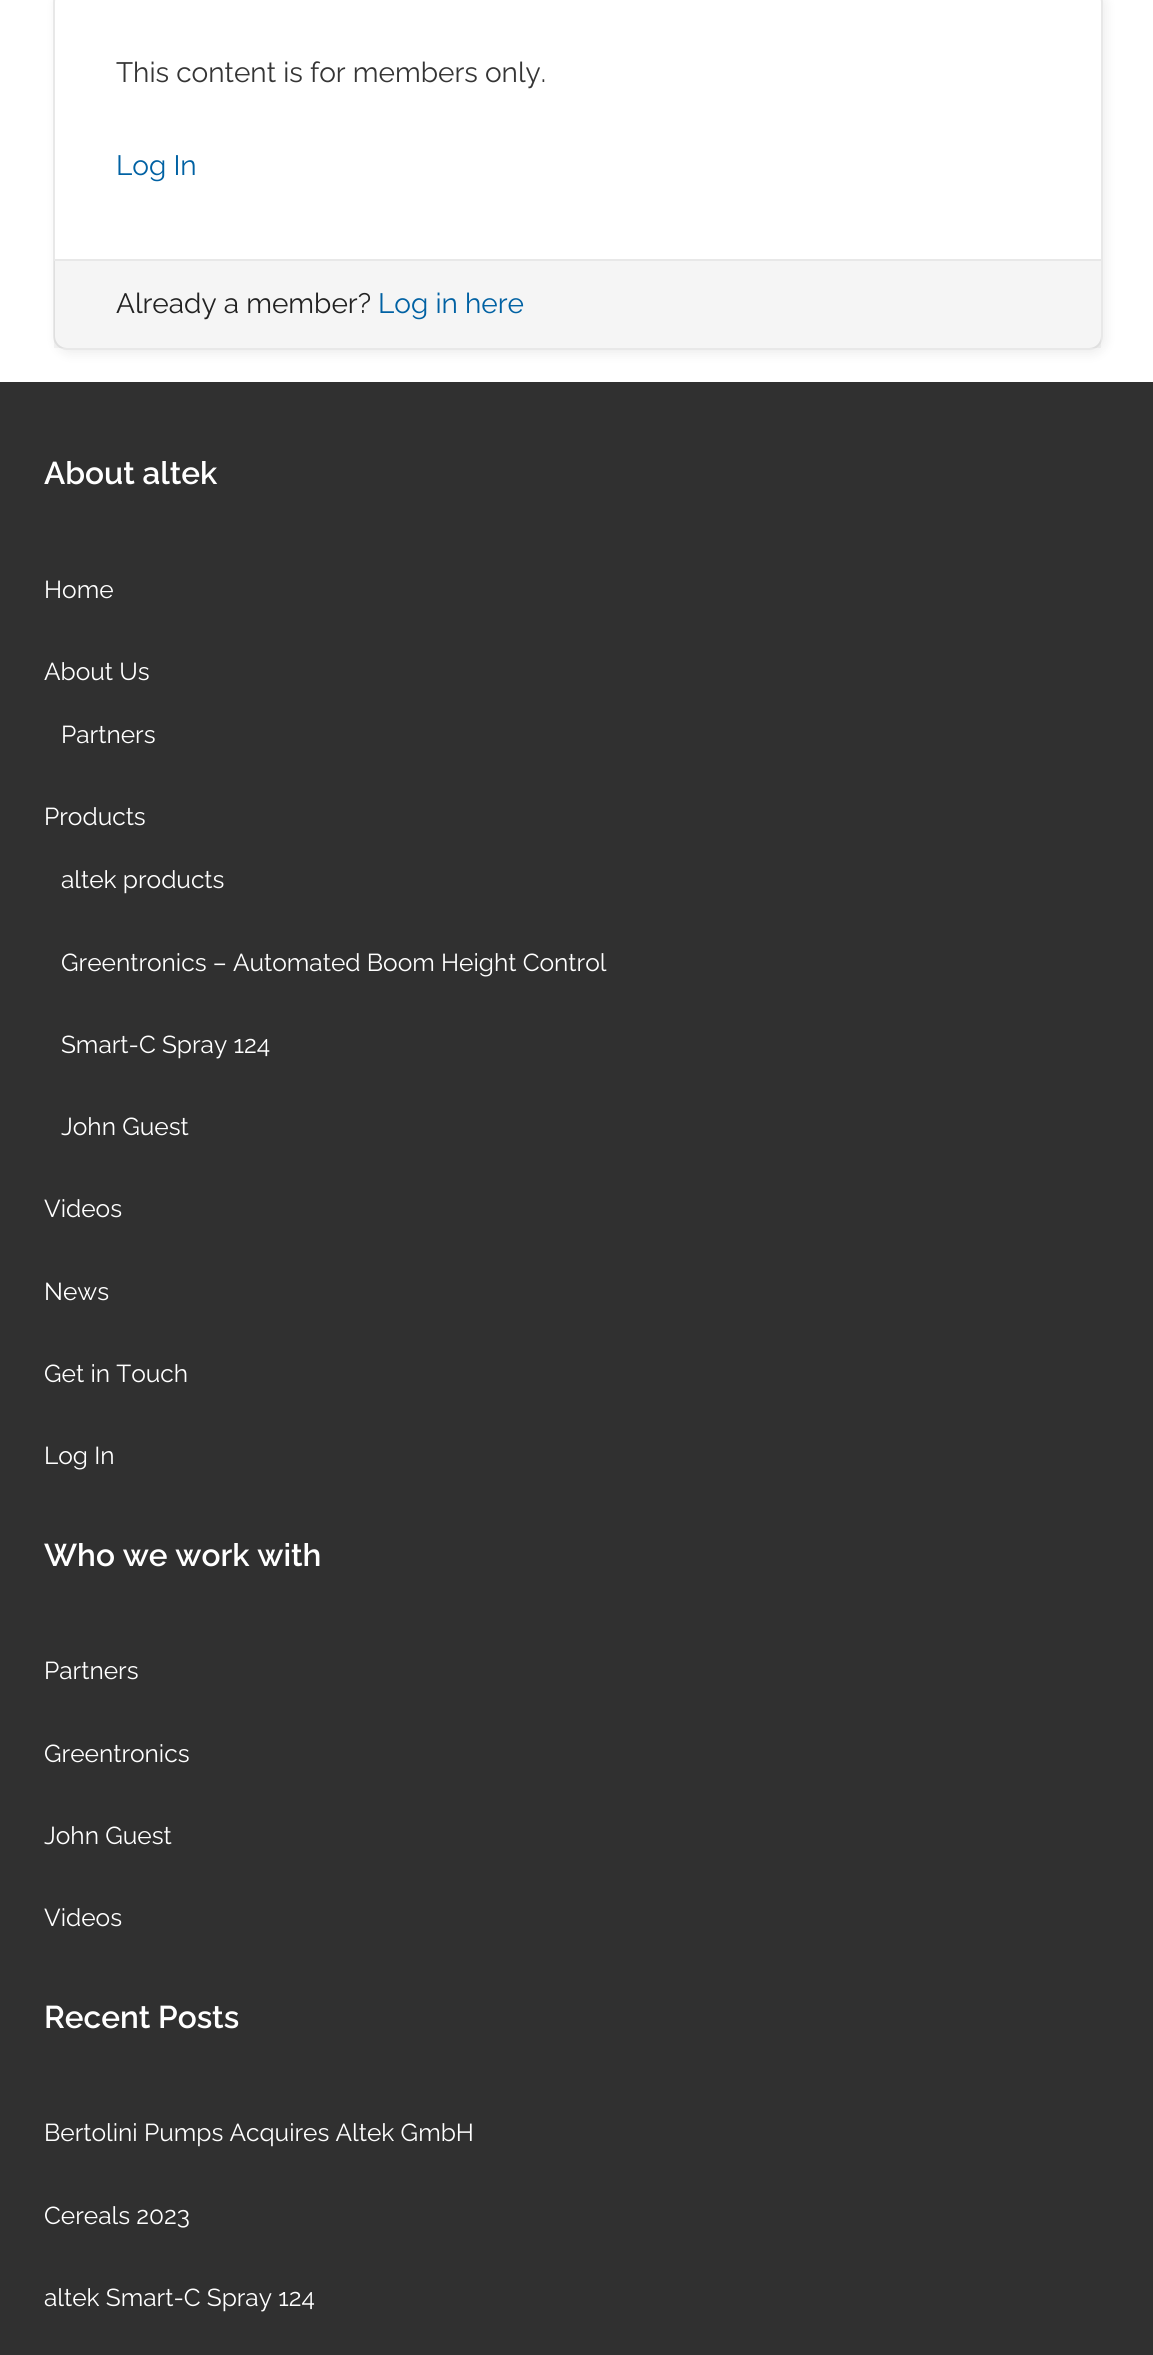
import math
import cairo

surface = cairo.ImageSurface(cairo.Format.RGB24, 1153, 2355)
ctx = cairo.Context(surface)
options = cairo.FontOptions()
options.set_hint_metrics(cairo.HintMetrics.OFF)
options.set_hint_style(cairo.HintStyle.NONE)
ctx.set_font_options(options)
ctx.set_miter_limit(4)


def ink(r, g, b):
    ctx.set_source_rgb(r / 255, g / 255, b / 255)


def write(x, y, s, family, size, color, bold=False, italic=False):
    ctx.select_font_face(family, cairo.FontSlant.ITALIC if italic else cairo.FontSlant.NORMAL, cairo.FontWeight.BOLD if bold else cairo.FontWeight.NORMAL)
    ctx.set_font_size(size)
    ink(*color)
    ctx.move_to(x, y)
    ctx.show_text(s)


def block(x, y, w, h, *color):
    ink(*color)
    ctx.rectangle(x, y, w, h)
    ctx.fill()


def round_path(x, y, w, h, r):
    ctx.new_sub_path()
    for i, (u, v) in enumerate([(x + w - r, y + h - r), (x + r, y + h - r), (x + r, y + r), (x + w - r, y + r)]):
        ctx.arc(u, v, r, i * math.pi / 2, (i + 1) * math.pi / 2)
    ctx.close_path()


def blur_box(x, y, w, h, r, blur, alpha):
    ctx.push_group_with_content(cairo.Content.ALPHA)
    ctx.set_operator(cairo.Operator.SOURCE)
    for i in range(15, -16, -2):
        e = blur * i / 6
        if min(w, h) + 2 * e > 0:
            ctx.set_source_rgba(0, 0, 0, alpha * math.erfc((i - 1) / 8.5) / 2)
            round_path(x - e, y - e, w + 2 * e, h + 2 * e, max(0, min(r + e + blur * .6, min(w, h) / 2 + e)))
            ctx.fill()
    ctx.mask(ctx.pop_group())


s1 = dict(family="Raleway", size=28, color=(53, 53, 53))
s2 = dict(family="Raleway", size=28, color=(0, 97, 163))
s3 = dict(family="Raleway", size=28, color=(34, 34, 34))
s4 = dict(family="Raleway SemiBold", size=31.5, color=(255, 255, 255))
s5 = dict(family="Raleway", size=24.5, color=(255, 255, 255))

ink(255, 255, 255)
ctx.paint()
ink(0, 0, 0)
blur_box(56, -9, 1050, 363, 14, 6, 0.07)
ink(255, 255, 255)
round_path(54, -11, 1048, 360, 13)
ctx.fill_preserve()
ink(232, 232, 232)
ctx.stroke()
write(116, 82, "This content is for members only.", **s1)
write(116, 175, "Log In", **s2)
ctx.set_source_rgba(0, 0, 0, 0.04)
ctx.rectangle(54, 261, 1047, 87)
ctx.fill()
block(54, 259, 1047, 2, 232, 232, 232)
write(116, 313, "Already a member?", **s3)
write(378, 313, "Log in here", **s2)
block(0, 382, 1153, 1973, 48, 48, 48)
write(44, 484, "About altek", **s4)
write(44, 598, "Home", **s5)
write(44, 680, "About Us", **s5)
write(61, 743, "Partners", **s5)
write(44, 825, "Products", **s5)
write(61, 888, "altek products", **s5)
write(61, 971, "Greentronics – Automated Boom Height Control", **s5)
write(61, 1053, "Smart-C Spray 124", **s5)
write(61, 1135, "John Guest", **s5)
write(44, 1217, "Videos", **s5)
write(44, 1300, "News", **s5)
write(44, 1382, "Get in Touch", **s5)
write(44, 1464, "Log In", **s5)
write(44, 1566, "Who we work with", **s4)
write(44, 1679, "Partners", **s5)
write(44, 1762, "Greentronics", **s5)
write(44, 1844, "John Guest", **s5)
write(44, 1926, "Videos", **s5)
write(44, 2028, "Recent Posts", **s4)
write(44, 2141, "Bertolini Pumps Acquires Altek GmbH", **s5)
write(44, 2224, "Cereals 2023", **s5)
write(44, 2306, "altek Smart-C Spray 124", **s5)
surface.write_to_png("screenshot.png")
